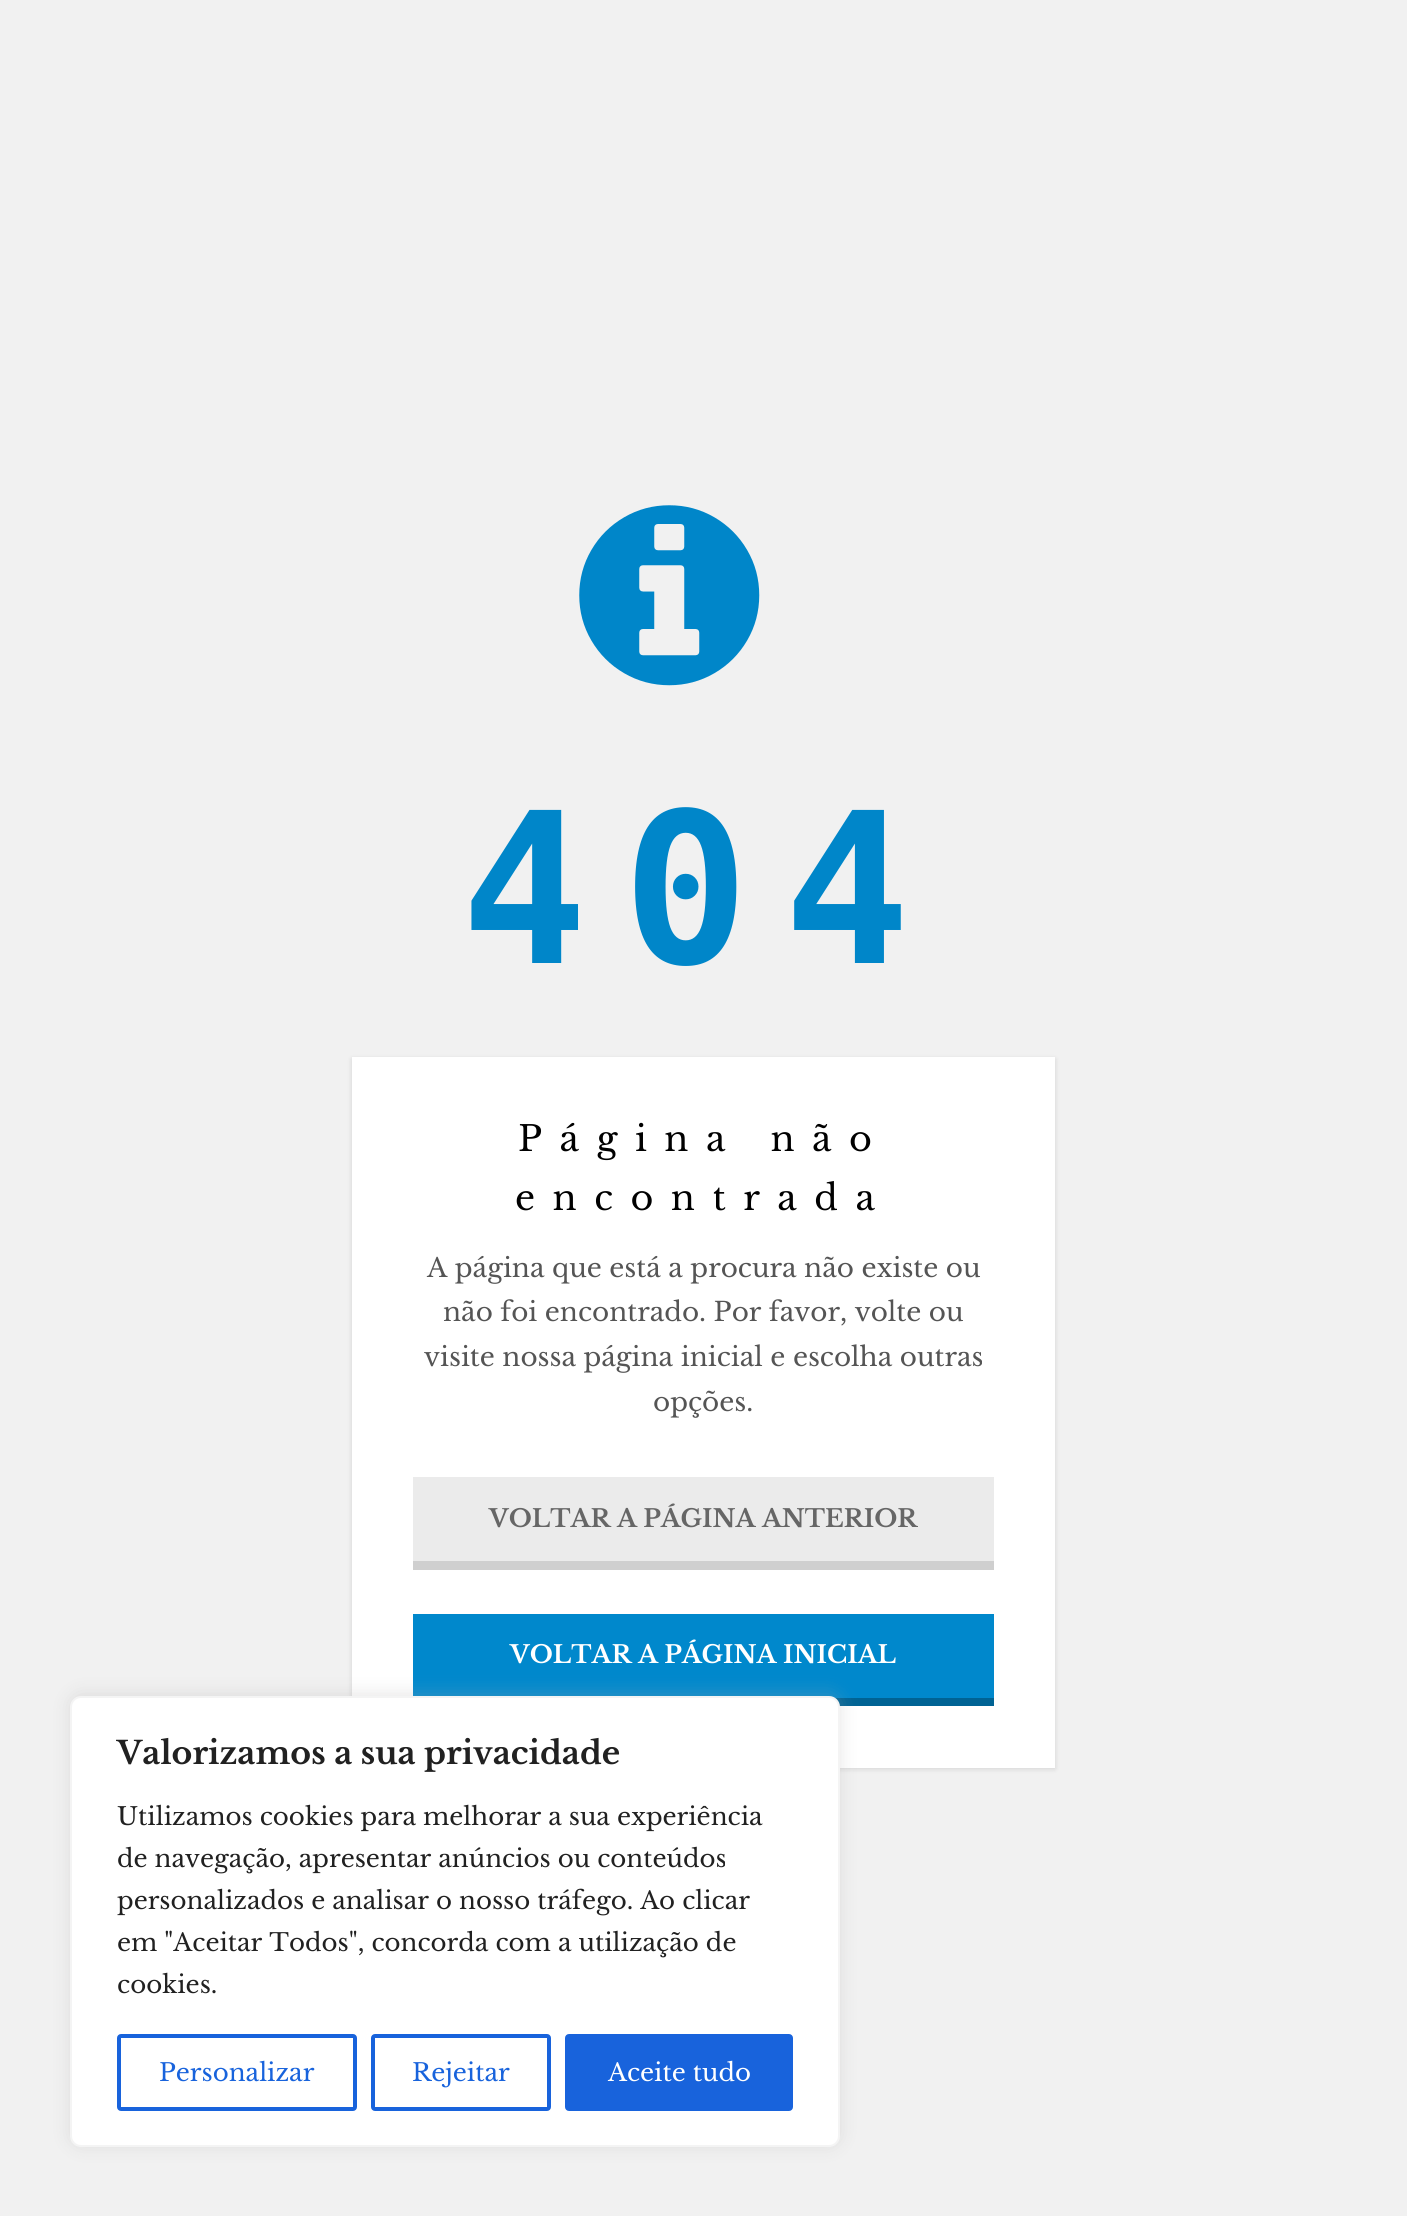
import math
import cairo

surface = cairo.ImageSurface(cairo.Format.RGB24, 1407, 2216)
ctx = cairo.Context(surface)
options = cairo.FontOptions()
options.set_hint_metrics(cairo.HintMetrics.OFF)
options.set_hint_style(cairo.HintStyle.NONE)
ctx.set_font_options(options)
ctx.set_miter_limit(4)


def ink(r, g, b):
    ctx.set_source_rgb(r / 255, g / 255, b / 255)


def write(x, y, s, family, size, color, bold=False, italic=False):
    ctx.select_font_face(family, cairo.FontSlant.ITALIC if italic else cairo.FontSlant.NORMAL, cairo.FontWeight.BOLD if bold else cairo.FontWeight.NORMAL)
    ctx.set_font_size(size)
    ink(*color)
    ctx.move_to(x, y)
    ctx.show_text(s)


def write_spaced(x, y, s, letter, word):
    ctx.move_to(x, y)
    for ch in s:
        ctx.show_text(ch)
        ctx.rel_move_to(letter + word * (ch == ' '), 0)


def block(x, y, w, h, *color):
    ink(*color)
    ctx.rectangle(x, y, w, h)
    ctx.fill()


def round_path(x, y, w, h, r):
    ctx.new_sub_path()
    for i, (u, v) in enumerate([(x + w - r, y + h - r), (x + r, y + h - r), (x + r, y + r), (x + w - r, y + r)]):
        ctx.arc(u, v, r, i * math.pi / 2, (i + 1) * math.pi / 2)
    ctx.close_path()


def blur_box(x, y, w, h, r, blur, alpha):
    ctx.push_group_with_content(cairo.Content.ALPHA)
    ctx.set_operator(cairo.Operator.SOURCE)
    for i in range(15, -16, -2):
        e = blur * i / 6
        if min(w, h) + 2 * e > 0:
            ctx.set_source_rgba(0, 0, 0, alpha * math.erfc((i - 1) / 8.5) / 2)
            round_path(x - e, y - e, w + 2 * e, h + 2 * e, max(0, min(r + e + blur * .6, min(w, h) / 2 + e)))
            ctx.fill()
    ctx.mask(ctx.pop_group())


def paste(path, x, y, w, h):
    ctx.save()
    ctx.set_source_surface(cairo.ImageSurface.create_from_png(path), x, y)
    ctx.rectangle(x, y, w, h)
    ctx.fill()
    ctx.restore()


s1 = dict(family="Libre Baskerville", size=26.25, color=(85, 85, 85))
s2 = dict(family="Libre Baskerville", size=24.5, color=(102, 102, 102), bold=True)
s3 = dict(family="Libre Baskerville", size=24.5, color=(255, 255, 255), bold=True)
s4 = dict(family="Libre Baskerville", size=31.5, color=(33, 33, 33), bold=True)
s5 = dict(family="Libre Baskerville", size=24.5, color=(33, 33, 33))
s6 = dict(family="Libre Baskerville", size=24.5, color=(24, 99, 220))
s7 = dict(family="Libre Baskerville", size=24.5, color=(255, 255, 255))

ink(241, 241, 241)
ctx.paint()
paste("pic1.png", 579, 505, 181, 181)
ctx.select_font_face("DejaVu Sans Mono", cairo.FontSlant.NORMAL, cairo.FontWeight.BOLD)
ctx.set_font_size(210)
ink(0, 134, 201)
write_spaced(461, 963, "404", 35, 0)
ink(0, 0, 0)
blur_box(352, 1059, 703, 710, 0, 2.5, 0.13)
block(352, 1057, 703, 711, 255, 255, 255)
ctx.select_font_face("Libre Baskerville")
ctx.set_font_size(35)
ink(0, 0, 0)
write_spaced(518, 1151, "Página não", 17.5, 0)
write_spaced(515, 1210, "encontrada", 17.5, 0)
write(427, 1277, "A página que está a procura não existe ou", **s1)
write(443, 1321, "não foi encontrado. Por favor, volte ou", **s1)
write(424, 1366, "visite nossa página inicial e escolha outras", **s1)
write(653, 1411, "opções.", **s1)
block(413, 1561, 581, 9, 207, 207, 207)
block(413, 1477, 581, 84, 235, 235, 235)
write(489, 1527, "VOLTAR A PÁGINA ANTERIOR", **s2)
block(835, 1698, 159, 8, 0, 99, 148)
block(413, 1614, 581, 84, 0, 136, 204)
write(510, 1663, "VOLTAR A PÁGINA INICIAL", **s3)
ink(172, 171, 171)
blur_box(70, 1694, 770, 452, 11, 9, 0.3)
ink(255, 255, 255)
round_path(71, 1697, 768, 449, 10)
ctx.fill_preserve()
ink(244, 244, 244)
ctx.stroke()
write(117, 1764, "Valorizamos a sua privacidade", **s4)
write(117, 1825, "Utilizamos cookies para melhorar a sua experiência", **s5)
write(117, 1867, "de navegação, apresentar anúncios ou conteúdos", **s5)
write(117, 1909, "personalizados e analisar o nosso tráfego. Ao clicar", **s5)
write(117, 1951, "em \"Aceitar Todos\", concorda com a utilização de", **s5)
write(117, 1993, "cookies.", **s5)
round_path(119, 2036, 236, 73, 2)
ink(24, 99, 220)
ctx.set_line_width(4)
ctx.stroke()
write(159, 2081, "Personalizar", **s6)
round_path(373, 2036, 176, 73, 2)
ctx.stroke()
write(412, 2081, "Rejeitar", **s6)
round_path(567, 2036, 224, 73, 2)
ctx.fill_preserve()
ctx.stroke()
write(608, 2081, "Aceite tudo", **s7)
surface.write_to_png("screenshot.png")
